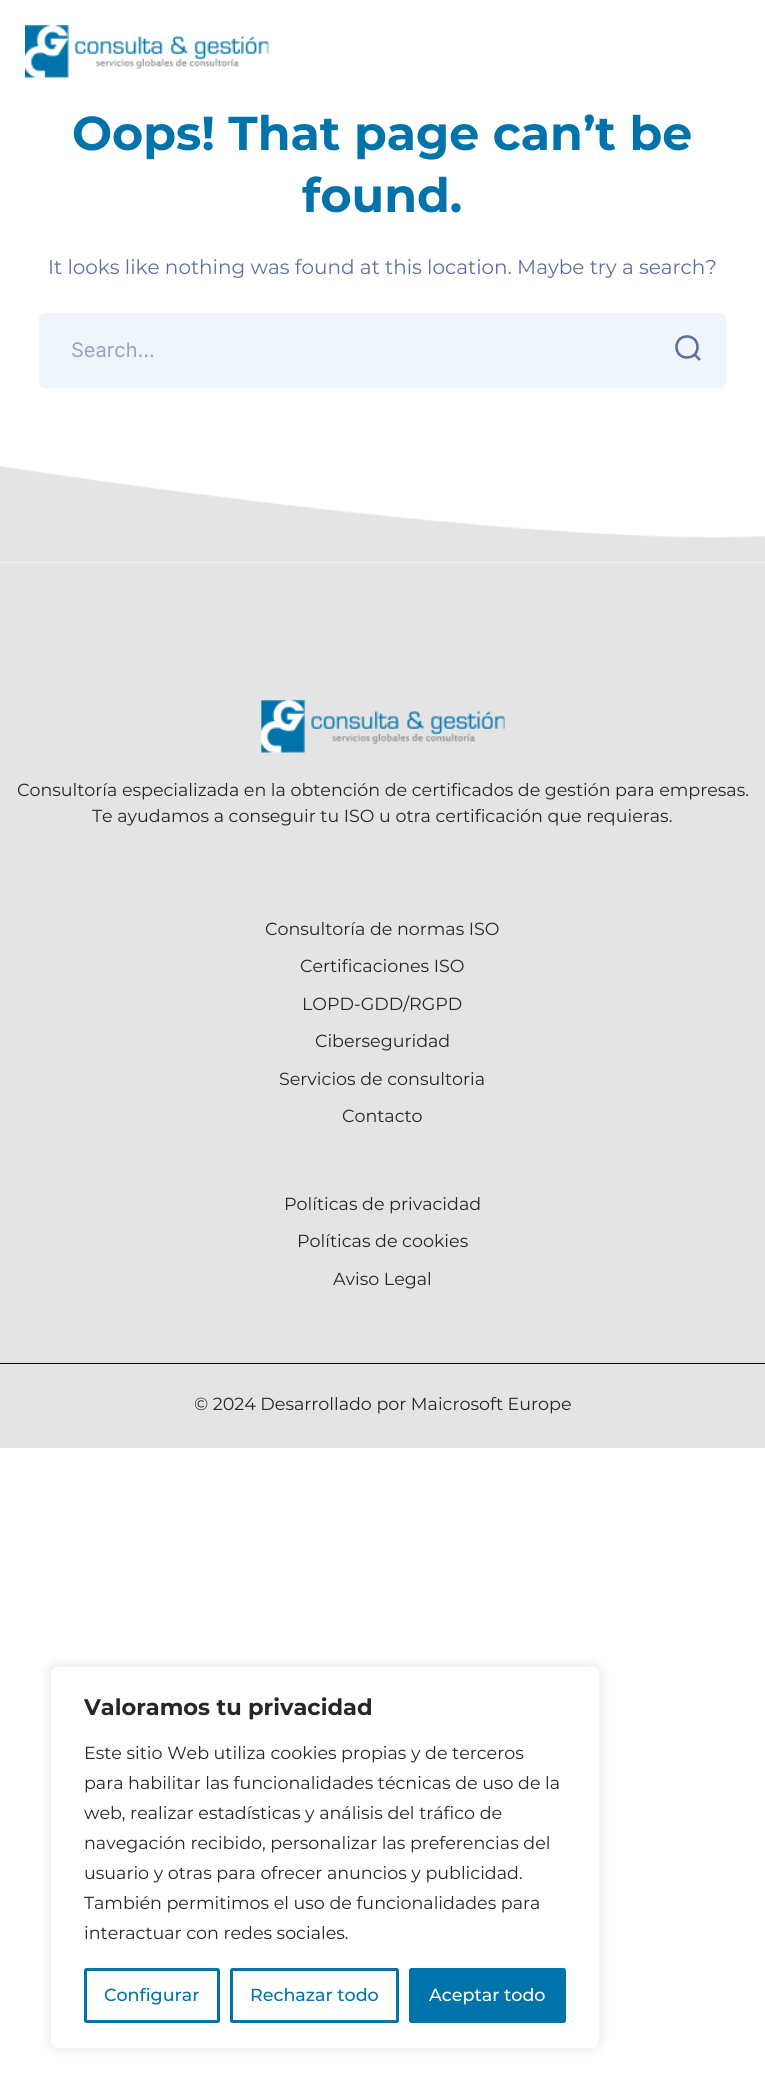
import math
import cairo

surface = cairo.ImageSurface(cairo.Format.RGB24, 765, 2098)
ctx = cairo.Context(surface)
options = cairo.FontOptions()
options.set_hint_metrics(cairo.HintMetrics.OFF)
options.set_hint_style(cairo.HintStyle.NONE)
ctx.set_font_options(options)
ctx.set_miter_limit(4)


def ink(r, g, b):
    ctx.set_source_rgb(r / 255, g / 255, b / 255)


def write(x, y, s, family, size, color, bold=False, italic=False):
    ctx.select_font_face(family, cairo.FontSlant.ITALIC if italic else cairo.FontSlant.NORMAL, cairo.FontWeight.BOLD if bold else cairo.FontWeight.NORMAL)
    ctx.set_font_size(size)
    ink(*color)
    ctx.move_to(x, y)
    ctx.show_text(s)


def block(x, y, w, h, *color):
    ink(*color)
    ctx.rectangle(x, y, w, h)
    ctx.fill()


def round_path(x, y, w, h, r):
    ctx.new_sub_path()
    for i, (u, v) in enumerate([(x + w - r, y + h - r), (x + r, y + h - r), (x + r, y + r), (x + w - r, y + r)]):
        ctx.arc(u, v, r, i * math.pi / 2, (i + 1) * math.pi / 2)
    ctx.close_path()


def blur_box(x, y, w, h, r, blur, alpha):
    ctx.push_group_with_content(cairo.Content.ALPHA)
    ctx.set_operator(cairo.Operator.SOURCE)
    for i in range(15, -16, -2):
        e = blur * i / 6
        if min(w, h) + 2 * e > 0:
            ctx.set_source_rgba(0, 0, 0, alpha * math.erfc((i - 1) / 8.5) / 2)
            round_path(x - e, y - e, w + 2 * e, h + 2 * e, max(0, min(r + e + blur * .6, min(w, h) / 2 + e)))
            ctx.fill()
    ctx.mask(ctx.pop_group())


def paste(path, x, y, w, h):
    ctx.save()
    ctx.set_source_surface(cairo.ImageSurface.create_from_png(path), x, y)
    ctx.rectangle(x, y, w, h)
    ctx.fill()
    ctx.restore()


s1 = dict(family="Montserrat", size=47.5, color=(0, 116, 170), bold=True)
s2 = dict(family="Montserrat", size=20, color=(94, 112, 157))
s3 = dict(family="Inter", size=20, color=(153, 163, 189))
s4 = dict(family="Montserrat", size=17.5, color=(38, 38, 38))
s5 = dict(family="Montserrat", size=22.5, color=(38, 38, 38), bold=True)
s6 = dict(family="Montserrat Medium", size=17.5, color=(0, 116, 170))
s7 = dict(family="Montserrat Medium", size=17.5, color=(255, 255, 255))

ink(255, 255, 255)
ctx.paint()
paste("pic1.png", 25, 25, 244, 53)
write(72, 150, "Oops! That page can’t be", **s1)
write(302, 212, "found.", **s1)
write(48, 274, "It looks like nothing was found at this location. Maybe try a search?", **s2)
ink(239, 245, 251)
round_path(39.5, 313.5, 686, 74, 5.5)
ctx.fill_preserve()
ctx.set_line_width(1)
ctx.stroke()
write(71, 357, "Search...", **s3)
ctx.new_path()
ctx.move_to(687, 336.5)
ctx.curve_to(701, 336.5, 701, 357.5, 687, 357.5)
ctx.curve_to(673, 357.5, 673, 336.5, 687, 336.5)
ctx.close_path()
ctx.move_to(700, 360)
ctx.line_to(694.5, 354.5)
ink(94, 112, 157)
ctx.set_line_width(2.6)
ctx.stroke()
paste("pic2.png", 0, 466, 765, 97)
block(0, 563, 765, 885, 228, 228, 228)
paste("pic3.png", 261, 699, 244, 54)
write(17, 796, "Consultoría especializada en la obtención de certificados de gestión para empresas.", **s4)
write(92, 822, "Te ayudamos a conseguir tu ISO u otra certificación que requieras.", **s4)
write(265, 935, "Consultoría de normas ISO", **s4)
write(300, 972, "Certificaciones ISO", **s4)
write(302, 1010, "LOPD-GDD/RGPD", **s4)
write(315, 1047, "Ciberseguridad", **s4)
write(279, 1085, "Servicios de consultoria", **s4)
write(342, 1122, "Contacto", **s4)
write(284, 1210, "Políticas de privacidad", **s4)
write(297, 1247, "Políticas de cookies", **s4)
write(333, 1285, "Aviso Legal", **s4)
block(0, 1363, 765, 1, 0, 0, 0)
write(194, 1410, "© 2024 Desarrollado por Maicrosoft Europe", **s4)
ink(172, 171, 171)
blur_box(50, 1665, 550, 383, 8, 6, 0.3)
ink(255, 255, 255)
round_path(50.5, 1666.5, 549, 382, 7.5)
ctx.fill_preserve()
ink(244, 244, 244)
ctx.set_line_width(1)
ctx.stroke()
write(84, 1715, "Valoramos tu privacidad", **s5)
write(84, 1759, "Este sitio Web utiliza cookies propias y de terceros", **s4)
write(84, 1789, "para habilitar las funcionalidades técnicas de uso de la", **s4)
write(84, 1819, "web, realizar estadísticas y análisis del tráfico de", **s4)
write(84, 1849, "navegación recibido, personalizar las preferencias del", **s4)
write(84, 1879, "usuario y otras para ofrecer anuncios y publicidad.", **s4)
write(84, 1909, "También permitimos el uso de funcionalidades para", **s4)
write(84, 1939, "interactuar con redes sociales.", **s4)
round_path(85.5, 1969.5, 133, 52, 1)
ink(0, 116, 170)
ctx.set_line_width(3)
ctx.stroke()
write(104, 2001, "Configurar", **s6)
round_path(231.5, 1969.5, 166, 52, 1)
ctx.stroke()
write(250, 2001, "Rechazar todo", **s6)
round_path(410.5, 1969.5, 154, 52, 1)
ctx.fill_preserve()
ctx.stroke()
write(429, 2001, "Aceptar todo", **s7)
surface.write_to_png("screenshot.png")
